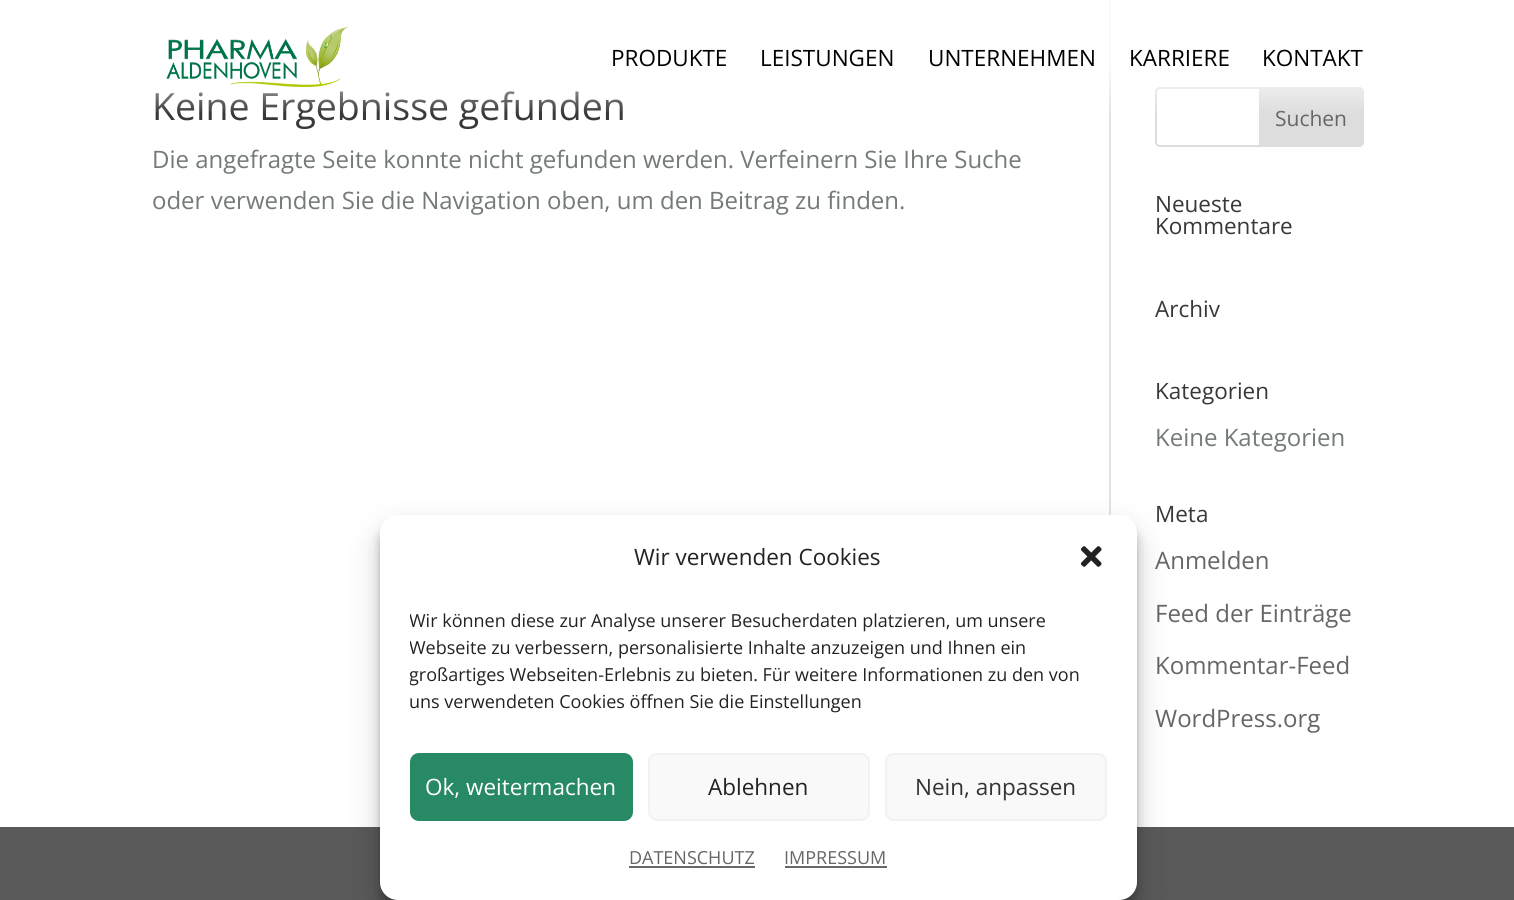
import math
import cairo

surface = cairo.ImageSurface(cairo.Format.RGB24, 1514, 900)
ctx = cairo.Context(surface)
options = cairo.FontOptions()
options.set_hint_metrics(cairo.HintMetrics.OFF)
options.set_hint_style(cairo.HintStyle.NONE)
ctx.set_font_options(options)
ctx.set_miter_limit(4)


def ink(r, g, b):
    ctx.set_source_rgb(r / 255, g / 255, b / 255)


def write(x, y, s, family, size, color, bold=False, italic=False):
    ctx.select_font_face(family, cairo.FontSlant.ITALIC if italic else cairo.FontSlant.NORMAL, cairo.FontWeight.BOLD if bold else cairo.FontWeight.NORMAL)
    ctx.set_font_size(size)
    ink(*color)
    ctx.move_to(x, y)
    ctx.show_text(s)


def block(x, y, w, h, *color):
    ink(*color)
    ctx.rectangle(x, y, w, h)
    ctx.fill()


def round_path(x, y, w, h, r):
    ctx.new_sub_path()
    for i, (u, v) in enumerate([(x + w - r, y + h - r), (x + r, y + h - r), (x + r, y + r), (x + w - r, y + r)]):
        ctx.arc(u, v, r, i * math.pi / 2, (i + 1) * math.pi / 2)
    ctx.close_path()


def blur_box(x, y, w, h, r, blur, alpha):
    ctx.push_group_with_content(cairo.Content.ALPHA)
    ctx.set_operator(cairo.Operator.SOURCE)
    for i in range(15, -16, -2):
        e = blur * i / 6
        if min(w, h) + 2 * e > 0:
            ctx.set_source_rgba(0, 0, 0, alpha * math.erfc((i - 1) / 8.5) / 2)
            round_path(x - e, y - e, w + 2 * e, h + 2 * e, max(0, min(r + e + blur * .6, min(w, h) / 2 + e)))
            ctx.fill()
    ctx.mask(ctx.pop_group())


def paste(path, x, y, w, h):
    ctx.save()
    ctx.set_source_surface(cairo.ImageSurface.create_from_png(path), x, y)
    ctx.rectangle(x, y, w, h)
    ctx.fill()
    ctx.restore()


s1 = dict(family="Open Sans", size=37.5, color=(55, 57, 56))
s2 = dict(family="Open Sans", size=21, color=(102, 102, 102))
s3 = dict(family="Open Sans", size=22.5, color=(0, 0, 0))
s4 = dict(family="Open Sans", size=24, color=(115, 122, 121))
s5 = dict(family="Open Sans", size=22.5, color=(55, 57, 56))
s6 = dict(family="Open Sans", size=24, color=(102, 102, 102))
s7 = dict(family="Open Sans", size=22.5, color=(34, 34, 34))
s8 = dict(family="Open Sans", size=18, color=(34, 34, 34))
s9 = dict(family="Open Sans", size=22.5, color=(255, 255, 255))
s10 = dict(family="Open Sans", size=22.5, color=(51, 51, 51))
s11 = dict(family="Open Sans", size=18, color=(102, 102, 102))

ink(255, 255, 255)
ctx.paint()
block(1109, 0, 2, 515, 226, 226, 226)
write(152, 120, "Keine Ergebnisse gefunden", **s1)
round_path(1156, 88, 207, 58, 4)
ink(221, 221, 221)
ctx.stroke()
ctx.new_path()
ctx.move_to(1260, 88)
ctx.line_to(1359, 88)
ctx.curve_to(1361, 88, 1363, 90, 1363, 92)
ctx.line_to(1363, 142)
ctx.curve_to(1363, 144, 1361, 146, 1359, 146)
ctx.line_to(1260, 146)
ctx.close_path()
ctx.fill_preserve()
ctx.stroke()
write(1275, 126, "Suchen", **s2)
gradient = cairo.LinearGradient(758, 0, 758, 114)
gradient.add_color_stop_rgba(0.57, 1, 1, 1, 0.82)
gradient.add_color_stop_rgba(1, 1, 1, 1, 0)
ctx.set_source(gradient)
ctx.rectangle(155, 0, 1209, 113)
ctx.fill()
paste("pic1.png", 166, 27, 182, 60)
write(611, 66, "PRODUKTE", **s3)
write(760, 66, "LEISTUNGEN", **s3)
write(928, 66, "UNTERNEHMEN", **s3)
write(1129, 66, "KARRIERE", **s3)
write(1262, 66, "KONTAKT", **s3)
write(152, 168, "Die angefragte Seite konnte nicht gefunden werden. Verfeinern Sie Ihre Suche", **s4)
write(152, 209, "oder verwenden Sie die Navigation oben, um den Beitrag zu finden.", **s4)
write(1155, 212, "Neueste", **s5)
write(1155, 234, "Kommentare", **s5)
write(1155, 317, "Archiv", **s5)
write(1155, 399, "Kategorien", **s5)
write(1155, 446, "Keine Kategorien", **s4)
write(1155, 522, "Meta", **s5)
write(1155, 569, "Anmelden", **s6)
write(1155, 622, "Feed der Einträge", **s6)
write(1155, 674, "Kommentar-Feed", **s6)
write(1155, 727, "WordPress.org", **s6)
block(0, 827, 1514, 73, 89, 89, 89)
ink(0, 0, 0)
blur_box(380, 524, 757, 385, 18, 4.5, 0.23)
blur_box(380, 530, 757, 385, 18, 15, 0.19)
ink(255, 255, 255)
round_path(380, 515, 757, 385, 18)
ctx.fill()
write(634, 565, "Wir verwenden Cookies", **s7)
paste("pic2.png", 1081, 546, 21, 21)
ctx.save()
ctx.rectangle(410, 608, 697, 115)
ctx.clip()
write(409, 627, "Wir können diese zur Analyse unserer Besucherdaten platzieren, um unsere", **s8)
write(409, 654, "Webseite zu verbessern, personalisierte Inhalte anzuzeigen und Ihnen ein", **s8)
write(409, 681, "großartiges Webseiten-Erlebnis zu bieten. Für weitere Informationen zu den von", **s8)
ctx.restore()
write(409, 708, "uns verwendeten Cookies öffnen Sie die Einstellungen", **s8)
ink(40, 138, 101)
round_path(411, 754, 221, 66, 8)
ctx.fill_preserve()
ctx.stroke()
write(425, 795, "Ok, weitermachen", **s9)
ink(249, 249, 249)
round_path(649, 754, 220, 66, 8)
ctx.fill_preserve()
ink(242, 242, 242)
ctx.stroke()
write(708, 795, "Ablehnen", **s7)
ink(249, 249, 249)
round_path(886, 754, 220, 66, 8)
ctx.fill_preserve()
ink(242, 242, 242)
ctx.stroke()
write(915, 795, "Nein, anpassen", **s10)
write(629, 864, "DATENSCHUTZ", **s11)
block(629, 866, 126, 2, 102, 105, 105)
write(784, 864, "IMPRESSUM", **s11)
block(785, 866, 102, 2, 102, 105, 105)
surface.write_to_png("screenshot.png")
